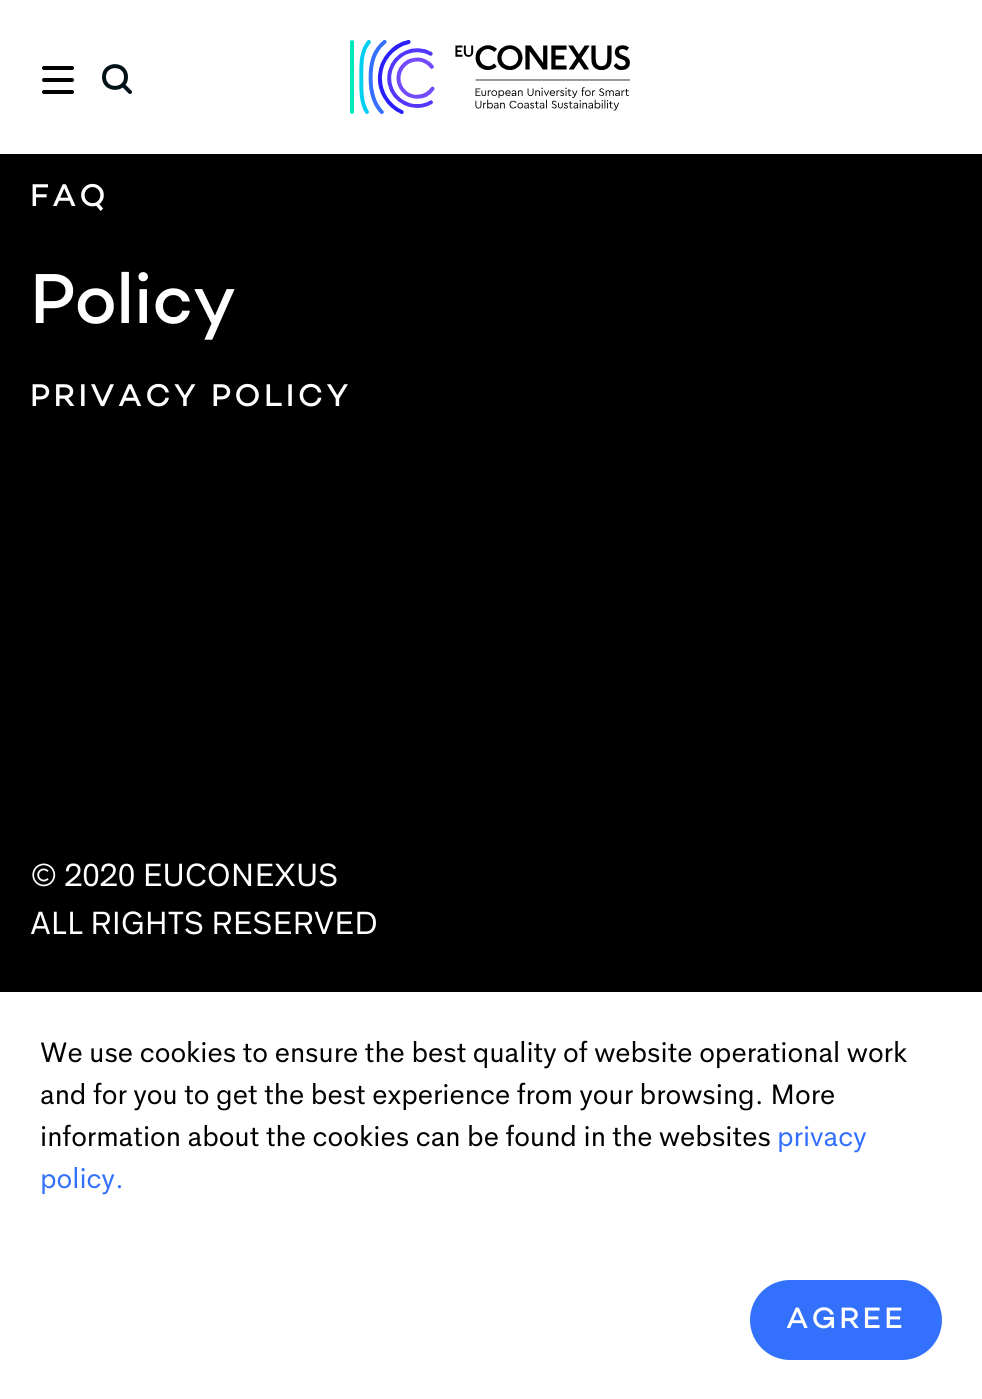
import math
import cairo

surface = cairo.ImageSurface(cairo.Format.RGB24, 982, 1399)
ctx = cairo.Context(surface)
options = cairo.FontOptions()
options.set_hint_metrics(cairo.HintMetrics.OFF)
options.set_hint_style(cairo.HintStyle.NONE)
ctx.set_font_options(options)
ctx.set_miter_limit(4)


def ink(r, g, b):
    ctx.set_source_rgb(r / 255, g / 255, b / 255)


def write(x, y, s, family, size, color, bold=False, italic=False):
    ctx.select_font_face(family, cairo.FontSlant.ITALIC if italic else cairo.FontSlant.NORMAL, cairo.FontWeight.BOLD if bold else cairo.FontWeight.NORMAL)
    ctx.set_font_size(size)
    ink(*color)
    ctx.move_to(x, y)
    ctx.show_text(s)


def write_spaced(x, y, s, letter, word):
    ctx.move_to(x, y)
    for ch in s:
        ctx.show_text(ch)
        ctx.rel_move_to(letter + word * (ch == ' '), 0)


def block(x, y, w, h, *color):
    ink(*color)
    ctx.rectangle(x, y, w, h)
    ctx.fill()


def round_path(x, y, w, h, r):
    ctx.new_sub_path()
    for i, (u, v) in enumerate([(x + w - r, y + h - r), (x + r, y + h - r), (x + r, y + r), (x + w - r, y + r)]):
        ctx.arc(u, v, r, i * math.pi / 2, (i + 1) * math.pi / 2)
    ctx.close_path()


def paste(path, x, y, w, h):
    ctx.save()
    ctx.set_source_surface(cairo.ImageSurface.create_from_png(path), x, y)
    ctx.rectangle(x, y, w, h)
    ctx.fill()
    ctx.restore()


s1 = dict(family="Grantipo", size=28, color=(0, 0, 0))
s2 = dict(family="Grantipo", size=28, color=(51, 112, 252))

ink(0, 0, 0)
ctx.paint()
block(0, 0, 982, 154, 255, 255, 255)
ctx.new_path()
ctx.move_to(44, 68)
ctx.line_to(72, 68)
ctx.move_to(44, 80)
ctx.line_to(72, 80)
ctx.move_to(44, 92)
ctx.line_to(72, 92)
ink(0, 0, 0)
ctx.set_line_width(4)
ctx.set_line_cap(cairo.LineCap.ROUND)
ctx.stroke()
ctx.new_path()
ctx.move_to(130, 92)
ctx.line_to(124, 86)
ctx.move_to(126, 77)
ctx.curve_to(126, 91.5, 104, 91.5, 104, 77)
ctx.curve_to(104, 62.5, 126, 62.5, 126, 77)
ctx.close_path()
ink(1, 17, 23)
ctx.set_line_join(cairo.LineJoin.ROUND)
ctx.stroke()
paste("pic1.png", 350, 40, 280, 74)
ctx.select_font_face("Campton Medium")
ctx.set_font_size(32)
ink(255, 255, 255)
write_spaced(30, 206, "FAQ", 3.25, 0)
ctx.set_font_size(72)
write_spaced(30, 323, "Policy", -1, 0)
ctx.set_font_size(32)
write_spaced(30, 406, "PRIVACY POLICY", 3.25, 0)
ctx.select_font_face("Grantipo")
write_spaced(30, 886, "© 2020 EUCONEXUS", -0.3, 0)
write_spaced(30, 934, "ALL RIGHTS RESERVED", -0.3, 0)
block(0, 992, 982, 407, 255, 255, 255)
write(40, 1062, "We use cookies to ensure the best quality of website operational work", **s1)
write(40, 1104, "and for you to get the best experience from your browsing. More", **s1)
write(40, 1146, "information about the cookies can be found in the websites", **s1)
write(777, 1146, "privacy", **s2)
write(40, 1188, "policy.", **s2)
round_path(750, 1280, 192, 80, 40)
ctx.fill()
ctx.select_font_face("Campton Medium")
ctx.set_font_size(30)
ink(255, 255, 255)
write_spaced(786, 1328, "AGREE", 3, 0)
surface.write_to_png("screenshot.png")
